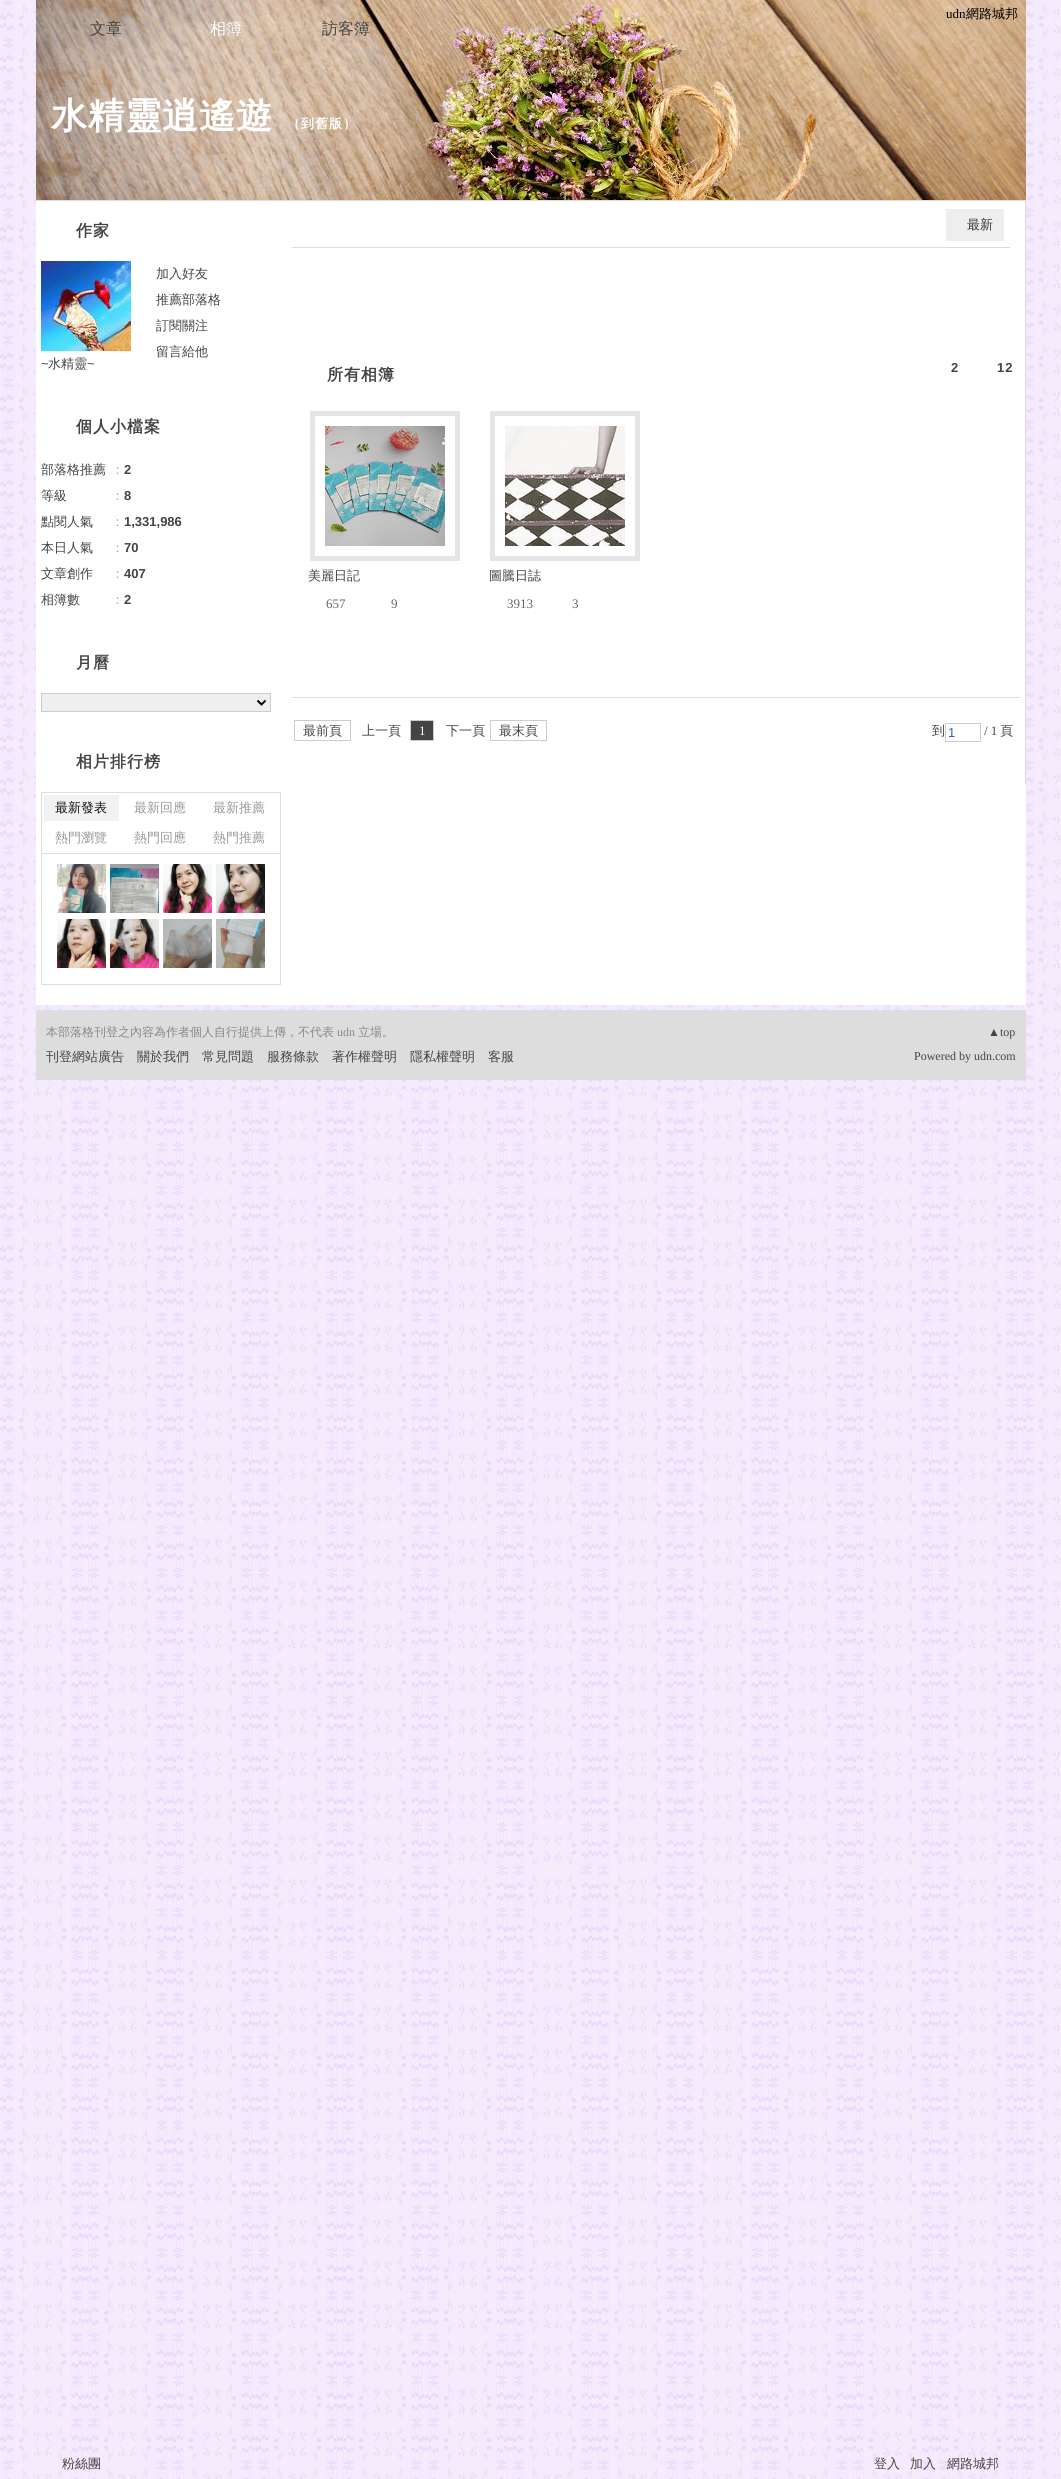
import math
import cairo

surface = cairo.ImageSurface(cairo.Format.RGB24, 1061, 2479)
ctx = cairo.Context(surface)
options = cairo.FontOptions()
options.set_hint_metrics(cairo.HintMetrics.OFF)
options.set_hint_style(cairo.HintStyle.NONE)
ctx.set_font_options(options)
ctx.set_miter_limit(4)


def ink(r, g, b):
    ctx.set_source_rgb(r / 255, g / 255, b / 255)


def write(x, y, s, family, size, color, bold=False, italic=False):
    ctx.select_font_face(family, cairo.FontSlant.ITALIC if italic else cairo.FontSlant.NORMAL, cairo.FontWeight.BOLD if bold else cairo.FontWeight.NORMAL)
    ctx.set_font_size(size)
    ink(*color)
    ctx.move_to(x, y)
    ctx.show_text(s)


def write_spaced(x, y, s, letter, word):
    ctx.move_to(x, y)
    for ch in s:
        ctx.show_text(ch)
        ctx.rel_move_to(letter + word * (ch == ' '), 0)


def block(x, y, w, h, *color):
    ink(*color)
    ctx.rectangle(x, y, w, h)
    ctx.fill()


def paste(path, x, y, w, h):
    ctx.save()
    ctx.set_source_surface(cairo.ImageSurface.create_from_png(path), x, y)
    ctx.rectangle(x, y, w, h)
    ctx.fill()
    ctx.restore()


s1 = dict(family="Liberation Serif", size=13, color=(0, 0, 0))
s2 = dict(family="WenQuanYi Zen Hei Medium", size=13, color=(0, 0, 0))
s3 = dict(family="WenQuanYi Zen Hei Medium", size=16, color=(68, 68, 68))
s4 = dict(family="WenQuanYi Zen Hei Medium", size=16, color=(255, 255, 255))
s5 = dict(family="WenQuanYi Zen Hei Medium", size=13, color=(68, 68, 68))
s6 = dict(family="Liberation Sans", size=13, color=(68, 68, 68))
s7 = dict(family="WenQuanYi Zen Hei Medium", size=13, color=(170, 170, 170))
s8 = dict(family="Liberation Sans", size=13, color=(68, 68, 68), bold=True)
s9 = dict(family="WenQuanYi Zen Hei Medium", size=13, color=(17, 17, 17))
s10 = dict(family="WenQuanYi Zen Hei Medium", size=13, color=(153, 153, 153))
s11 = dict(family="WenQuanYi Zen Hei Medium", size=13, color=(51, 51, 51))
s12 = dict(family="Liberation Serif", size=13, color=(102, 102, 102))
s13 = dict(family="Liberation Serif", size=13, color=(255, 255, 255))
s14 = dict(family="Liberation Sans", size=13, color=(51, 85, 221))
s15 = dict(family="Liberation Serif", size=13, color=(68, 68, 68))
s16 = dict(family="WenQuanYi Zen Hei Medium", size=12, color=(136, 136, 136))
s17 = dict(family="Liberation Serif", size=12, color=(136, 136, 136))
s18 = dict(family="Liberation Serif", size=12, color=(68, 68, 68))

ink(255, 255, 255)
ctx.paint()
paste("pic1.png", 0, 0, 1061, 2479)
paste("pic2.png", 36, 0, 990, 200)
write(946, 18, "udn", **s1)
write(966, 18, "網路城邦", **s2)
write(90, 34, "文章", **s3)
write(210, 34, "相簿", **s4)
write(322, 34, "訪客簿", **s3)
block(36, 200, 990, 1, 221, 221, 221)
ctx.select_font_face("WenQuanYi Zen Hei", cairo.FontSlant.NORMAL, cairo.FontWeight.BOLD)
ctx.set_font_size(36)
ink(255, 255, 255)
write_spaced(51, 128, "水精靈逍遙遊", 1, 0)
ctx.set_font_size(13)
write_spaced(287, 128, "（到舊版）", 1, 0)
block(36, 201, 990, 804, 255, 255, 255)
ctx.set_font_size(16)
ink(68, 68, 68)
write_spaced(76, 236, "作家", 1, 0)
write(156, 278, "加入好友", **s5)
write(156, 304, "推薦部落格", **s5)
write(156, 330, "訂閱關注", **s5)
write(156, 356, "留言給他", **s5)
paste("pic3.png", 41, 261, 90, 90)
write(41, 368, "~", **s6)
write(48, 368, "水精靈", **s5)
write(87, 368, "~", **s6)
ctx.select_font_face("WenQuanYi Zen Hei", cairo.FontSlant.NORMAL, cairo.FontWeight.BOLD)
ctx.set_font_size(16)
write_spaced(76, 432, "個人小檔案", 1, 0)
write(41, 474, "部落格推薦", **s5)
write(111, 474, "：", **s7)
write(124, 474, "2", **s8)
write(41, 500, "等級", **s5)
write(111, 500, "：", **s7)
write(124, 500, "8", **s8)
write(41, 526, "點閱人氣", **s5)
write(111, 526, "：", **s7)
write(124, 526, "1,331,986", **s8)
write(41, 552, "本日人氣", **s5)
write(111, 552, "：", **s7)
write(124, 552, "70", **s8)
write(41, 578, "文章創作", **s5)
write(111, 578, "：", **s7)
write(124, 578, "407", **s8)
write(41, 604, "相簿數", **s5)
write(111, 604, "：", **s7)
write(124, 604, "2", **s8)
ctx.select_font_face("WenQuanYi Zen Hei", cairo.FontSlant.NORMAL, cairo.FontWeight.BOLD)
ctx.set_font_size(16)
write_spaced(76, 668, "月曆", 1, 0)
ink(239, 239, 239)
ctx.rectangle(41.5, 693.5, 229, 18)
ctx.fill_preserve()
ink(204, 204, 204)
ctx.set_line_width(1)
ctx.stroke()
ctx.new_path()
ctx.move_to(257.5, 700.5)
ctx.line_to(261.5, 704.5)
ctx.line_to(265.5, 700.5)
ink(0, 0, 0)
ctx.set_line_width(2)
ctx.stroke()
ink(68, 68, 68)
write_spaced(76, 767, "相片排行榜", 1, 0)
ctx.rectangle(41.5, 792.5, 239, 61)
ink(221, 221, 221)
ctx.set_line_width(1)
ctx.stroke()
block(44, 795, 75, 26, 242, 242, 242)
write(55, 812, "最新發表", **s9)
write(134, 812, "最新回應", **s10)
write(213, 812, "最新推薦", **s10)
write(55, 842, "熱門瀏覽", **s10)
write(134, 842, "熱門回應", **s10)
write(213, 842, "熱門推薦", **s10)
block(280, 854, 1, 131, 221, 221, 221)
block(41, 984, 240, 1, 221, 221, 221)
block(41, 854, 1, 131, 221, 221, 221)
paste("pic4.png", 57, 864, 49, 49)
paste("pic5.png", 110, 864, 49, 49)
paste("pic6.png", 163, 864, 49, 49)
paste("pic7.png", 216, 864, 49, 49)
paste("pic8.png", 57, 919, 49, 49)
paste("pic9.png", 110, 919, 49, 49)
paste("pic10.png", 163, 919, 49, 49)
paste("pic11.png", 216, 919, 49, 49)
block(1025, 201, 1, 583, 221, 221, 221)
block(292, 247, 718, 1, 221, 221, 221)
block(946, 209, 58, 32, 238, 238, 238)
write(967, 229, "最新", **s11)
ctx.select_font_face("WenQuanYi Zen Hei", cairo.FontSlant.NORMAL, cairo.FontWeight.BOLD)
ctx.set_font_size(16)
ink(68, 68, 68)
write_spaced(327, 380, "所有相簿", 1, 0)
ctx.select_font_face("Liberation Sans", cairo.FontSlant.NORMAL, cairo.FontWeight.BOLD)
ctx.set_font_size(13)
write_spaced(951, 372, "2", 1, 0)
write_spaced(997, 372, "12", 1, 0)
ctx.rectangle(312.5, 413.5, 145, 145)
ink(229, 229, 229)
ctx.set_line_width(5)
ctx.stroke()
paste("pic12.png", 325, 426, 120, 120)
write(308, 580, "美麗日記", **s5)
write(326, 608, "657", **s12)
write(391, 608, "9", **s12)
ctx.rectangle(492.5, 413.5, 145, 145)
ink(229, 229, 229)
ctx.stroke()
paste("pic13.png", 505, 426, 120, 120)
write(489, 580, "圖騰日誌", **s5)
write(507, 608, "3913", **s12)
write(572, 608, "3", **s12)
block(292, 697, 728, 1, 221, 221, 221)
ctx.rectangle(294.5, 720.5, 56, 20)
ink(204, 204, 204)
ctx.set_line_width(1)
ctx.stroke()
write(303, 735, "最前頁", **s5)
write(362, 735, "上一頁", **s5)
ctx.rectangle(410.5, 720.5, 23, 20)
ctx.fill_preserve()
ink(204, 204, 204)
ctx.stroke()
write(419, 735, "1", **s13)
write(446, 735, "下一頁", **s5)
ctx.rectangle(490.5, 720.5, 56, 20)
ink(204, 204, 204)
ctx.stroke()
write(499, 735, "最末頁", **s5)
write(932, 735, "到", **s5)
ctx.rectangle(945.5, 723.5, 35, 18)
ink(204, 204, 204)
ctx.stroke()
write(948, 737, "1", **s14)
write(984, 735, "/ 1", **s15)
write(1000, 735, "頁", **s5)
block(36, 1010, 990, 70, 221, 221, 221)
write(46, 1036, "本部落格刊登之內容為作者個人自行提供上傳，不代表", **s16)
write(337, 1036, "udn", **s17)
write(358, 1036, "立場。", **s16)
write(988, 1036, "▲top", **s18)
write(46, 1061, "刊登網站廣告", **s5)
write(137, 1061, "關於我們", **s5)
write(202, 1061, "常見問題", **s5)
write(267, 1061, "服務條款", **s5)
write(332, 1061, "著作權聲明", **s5)
write(410, 1061, "隱私權聲明", **s5)
write(488, 1061, "客服", **s5)
write(914, 1060, "Powered by udn.com", **s18)
write(62, 2468, "粉絲團", **s5)
write(874, 2468, "登入", **s5)
write(910, 2468, "加入", **s5)
write(947, 2468, "網路城邦", **s5)
surface.write_to_png("screenshot.png")
